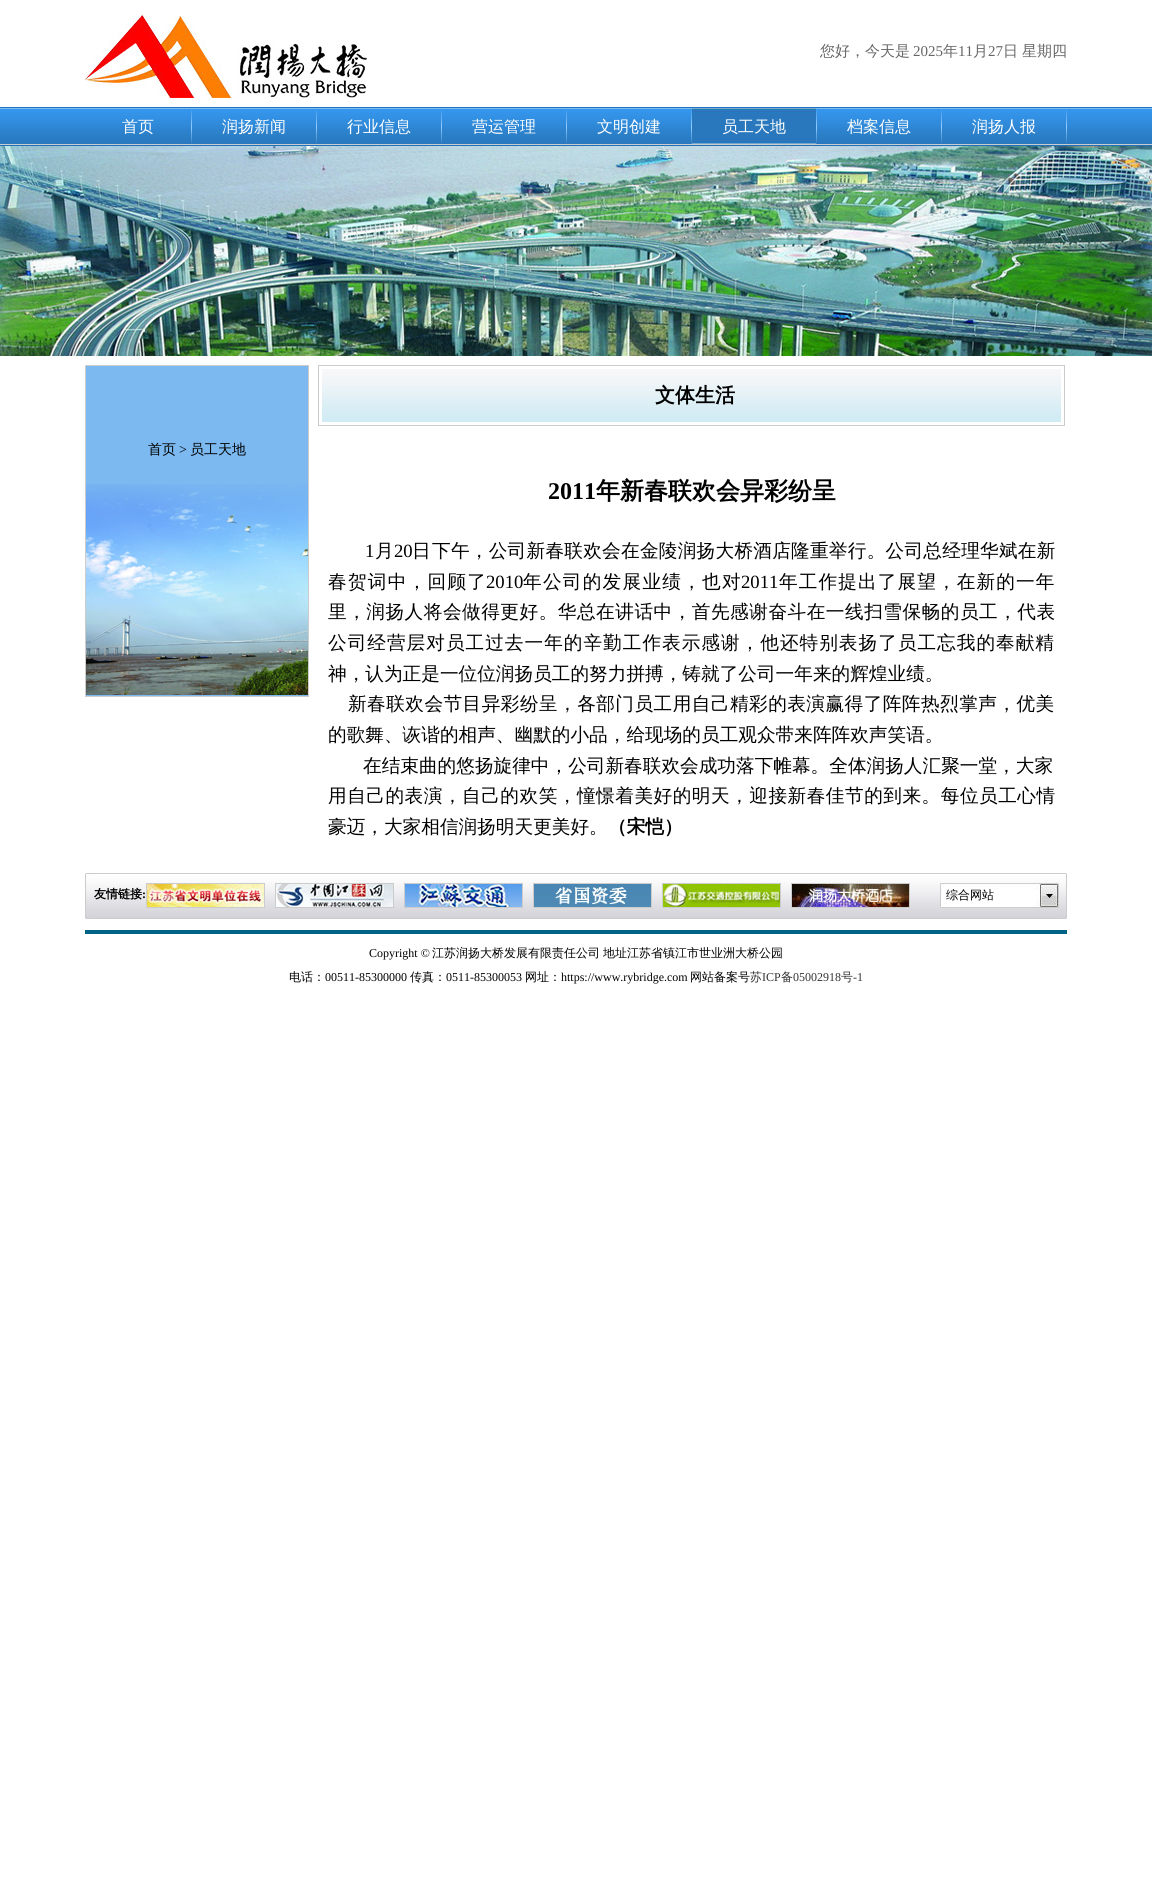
import math
import cairo

surface = cairo.ImageSurface(cairo.Format.RGB24, 1152, 1896)
ctx = cairo.Context(surface)
options = cairo.FontOptions()
options.set_hint_metrics(cairo.HintMetrics.OFF)
options.set_hint_style(cairo.HintStyle.NONE)
ctx.set_font_options(options)
ctx.set_miter_limit(4)


def ink(r, g, b):
    ctx.set_source_rgb(r / 255, g / 255, b / 255)


def write(x, y, s, family, size, color, bold=False, italic=False):
    ctx.select_font_face(family, cairo.FontSlant.ITALIC if italic else cairo.FontSlant.NORMAL, cairo.FontWeight.BOLD if bold else cairo.FontWeight.NORMAL)
    ctx.set_font_size(size)
    ink(*color)
    ctx.move_to(x, y)
    ctx.show_text(s)


def write_spaced(x, y, s, letter, word):
    ctx.move_to(x, y)
    for ch in s:
        ctx.show_text(ch)
        ctx.rel_move_to(letter + word * (ch == ' '), 0)


def block(x, y, w, h, *color):
    ink(*color)
    ctx.rectangle(x, y, w, h)
    ctx.fill()


def paste(path, x, y, w, h):
    ctx.save()
    ctx.set_source_surface(cairo.ImageSurface.create_from_png(path), x, y)
    ctx.rectangle(x, y, w, h)
    ctx.fill()
    ctx.restore()


s1 = dict(family="WenQuanYi Zen Hei Medium", size=15, color=(102, 102, 102))
s2 = dict(family="Liberation Serif", size=15, color=(102, 102, 102))
s3 = dict(family="WenQuanYi Zen Hei Medium", size=16, color=(255, 255, 255))
s4 = dict(family="WenQuanYi Zen Hei Medium", size=14, color=(0, 0, 0))
s5 = dict(family="Liberation Serif", size=14, color=(0, 0, 0))
s6 = dict(family="WenQuanYi Zen Hei", size=20, color=(0, 0, 0), bold=True)
s7 = dict(family="Liberation Serif", size=24, color=(0, 0, 0), bold=True)
s8 = dict(family="WenQuanYi Zen Hei", size=24, color=(0, 0, 0), bold=True)
s9 = dict(family="Liberation Serif", size=18.65, color=(0, 0, 0))
s10 = dict(family="WenQuanYi Zen Hei Medium", size=18.65, color=(0, 0, 0))
s11 = dict(family="WenQuanYi Zen Hei", size=18.65, color=(0, 0, 0), bold=True)
s12 = dict(family="WenQuanYi Zen Hei", size=12, color=(0, 0, 0), bold=True)
s13 = dict(family="Liberation Serif", size=12, color=(0, 0, 0), bold=True)
s14 = dict(family="WenQuanYi Zen Hei Medium", size=12, color=(0, 0, 0))
s15 = dict(family="Liberation Serif", size=12, color=(0, 0, 0))
s16 = dict(family="WenQuanYi Zen Hei Medium", size=12, color=(51, 51, 51))
s17 = dict(family="Liberation Serif", size=12, color=(51, 51, 51))

ink(255, 255, 255)
ctx.paint()
paste("pic1.png", 85, 15, 282, 83)
write(820, 56, "您好，今天是", **s1)
write(913, 56, "2025", **s2)
write(943, 56, "年", **s1)
write(958, 56, "11", **s2)
write(973, 56, "月", **s1)
write(988, 56, "27", **s2)
write(1003, 56, "日", **s1)
write(1022, 56, "星期四", **s1)
paste("pic2.png", 0, 107, 1152, 39)
paste("pic3.png", 191, 110, 1, 34)
write(122, 132, "首页", **s3)
paste("pic3.png", 316, 110, 1, 34)
write(222, 132, "润扬新闻", **s3)
paste("pic3.png", 441, 110, 1, 34)
write(347, 132, "行业信息", **s3)
paste("pic3.png", 566, 110, 1, 34)
write(472, 132, "营运管理", **s3)
paste("pic3.png", 691, 110, 1, 34)
write(597, 132, "文明创建", **s3)
paste("pic3.png", 816, 110, 1, 34)
paste("pic4.png", 692, 108, 124, 38)
write(722, 132, "员工天地", **s3)
paste("pic3.png", 941, 110, 1, 34)
write(847, 132, "档案信息", **s3)
paste("pic3.png", 1066, 110, 1, 34)
write(972, 132, "润扬人报", **s3)
paste("pic5.png", 0, 146, 1152, 210)
paste("pic6.png", 86, 366, 222, 330)
ctx.rectangle(85.5, 365.5, 223, 331)
ink(204, 204, 204)
ctx.set_line_width(1)
ctx.stroke()
write(148, 454, "首页", **s4)
write(179, 454, ">", **s5)
write(190, 454, "员工天地", **s4)
ctx.rectangle(318.5, 365.5, 746, 60)
ink(204, 204, 204)
ctx.stroke()
paste("pic7.png", 322, 369, 739, 53)
write(655, 402, "文体生活", **s6)
write(548, 499, "2011", **s7)
write(596, 499, "年新春联欢会异彩纷呈", **s8)
write(365, 557, "1", **s9)
write(375, 557, "月", **s10)
write(394, 557, "20", **s9)
write(412, 557, "日", **s10)
write_spaced(432, 557, "下午，公司新春联欢会在金陵润扬大桥酒店隆重举行。公司总经理华斌在新", 0.25, 0)
write_spaced(328, 588, "春贺词中，回顾了", 1.25, 0)
write(486, 588, "2010", **s9)
ctx.select_font_face("WenQuanYi Zen Hei Medium")
write_spaced(523, 588, "年公司的发展业绩，也对", 1.25, 0)
write(741, 588, "2011", **s9)
ctx.select_font_face("WenQuanYi Zen Hei Medium")
write_spaced(779, 588, "年工作提出了展望，在新的一年", 1.1, 0)
write_spaced(328, 618, "里，润扬人将会做得更好。华总在讲话中，首先感谢奋斗在一线扫雪保畅的员工，代表", 0.5, 0)
write_spaced(328, 649, "公司经营层对员工过去一年的辛勤工作表示感谢，他还特别表扬了员工忘我的奉献精", 1, 0)
write(328, 680, "神，认为正是一位位润扬员工的努力拼搏，铸就了公司一年来的辉煌业绩。", **s10)
write_spaced(348, 710, "新春联欢会节目异彩纷呈，各部门员工用自己精彩的表演赢得了阵阵热烈掌声，优美", 0.45, 0)
write(328, 741, "的歌舞、诙谐的相声、幽默的小品，给现场的员工观众带来阵阵欢声笑语。", **s10)
write(363, 772, "在结束曲的悠扬旋律中，公司新春联欢会成功落下帷幕。全体润扬人汇聚一堂，大家", **s10)
write_spaced(328, 802, "用自己的表演，自己的欢笑，憧憬着美好的明天，迎接新春佳节的到来。每位员工心情", 0.5, 0)
write(328, 833, "豪迈，大家相信润扬明天更美好。", **s10)
write(608, 833, "（宋恺）", **s11)
paste("pic8.png", 85, 873, 982, 46)
write(94, 898, "友情链接", **s12)
write(142, 898, ":", **s13)
ctx.rectangle(146.5, 883.5, 118, 24)
ink(204, 204, 204)
ctx.stroke()
paste("pic9.png", 147, 884, 117, 23)
ctx.rectangle(275.5, 883.5, 118, 24)
ctx.stroke()
paste("pic10.png", 276, 884, 117, 23)
ctx.rectangle(404.5, 883.5, 118, 24)
ctx.stroke()
paste("pic11.png", 405, 884, 117, 23)
ctx.rectangle(533.5, 883.5, 118, 24)
ctx.stroke()
paste("pic12.png", 534, 884, 117, 23)
ctx.rectangle(662.5, 883.5, 118, 24)
ctx.stroke()
paste("pic13.png", 663, 884, 117, 23)
ctx.rectangle(791.5, 883.5, 118, 24)
ctx.stroke()
paste("pic14.png", 792, 884, 117, 23)
paste("pic15.png", 940, 883, 119, 25)
write(946, 899, "综合网站", **s14)
block(85, 930, 982, 4, 1, 99, 136)
write(369, 957, "Copyright ©", **s15)
write(432, 957, "江苏润扬大桥发展有限责任公司", **s14)
write(603, 957, "地址江苏省镇江市世业洲大桥公园", **s14)
write(289, 981, "电话：", **s14)
write(325, 981, "00511-85300000", **s15)
write(410, 981, "传真：", **s14)
write(446, 981, "0511-85300053", **s15)
write(525, 981, "网址：", **s14)
write(561, 981, "https://www.rybridge.com", **s15)
write(690, 981, "网站备案号", **s14)
write(750, 981, "苏", **s16)
write(762, 981, "ICP", **s17)
write(781, 981, "备", **s16)
write(793, 981, "05002918", **s17)
write(841, 981, "号", **s16)
write(853, 981, "-1", **s17)
surface.write_to_png("screenshot.png")
